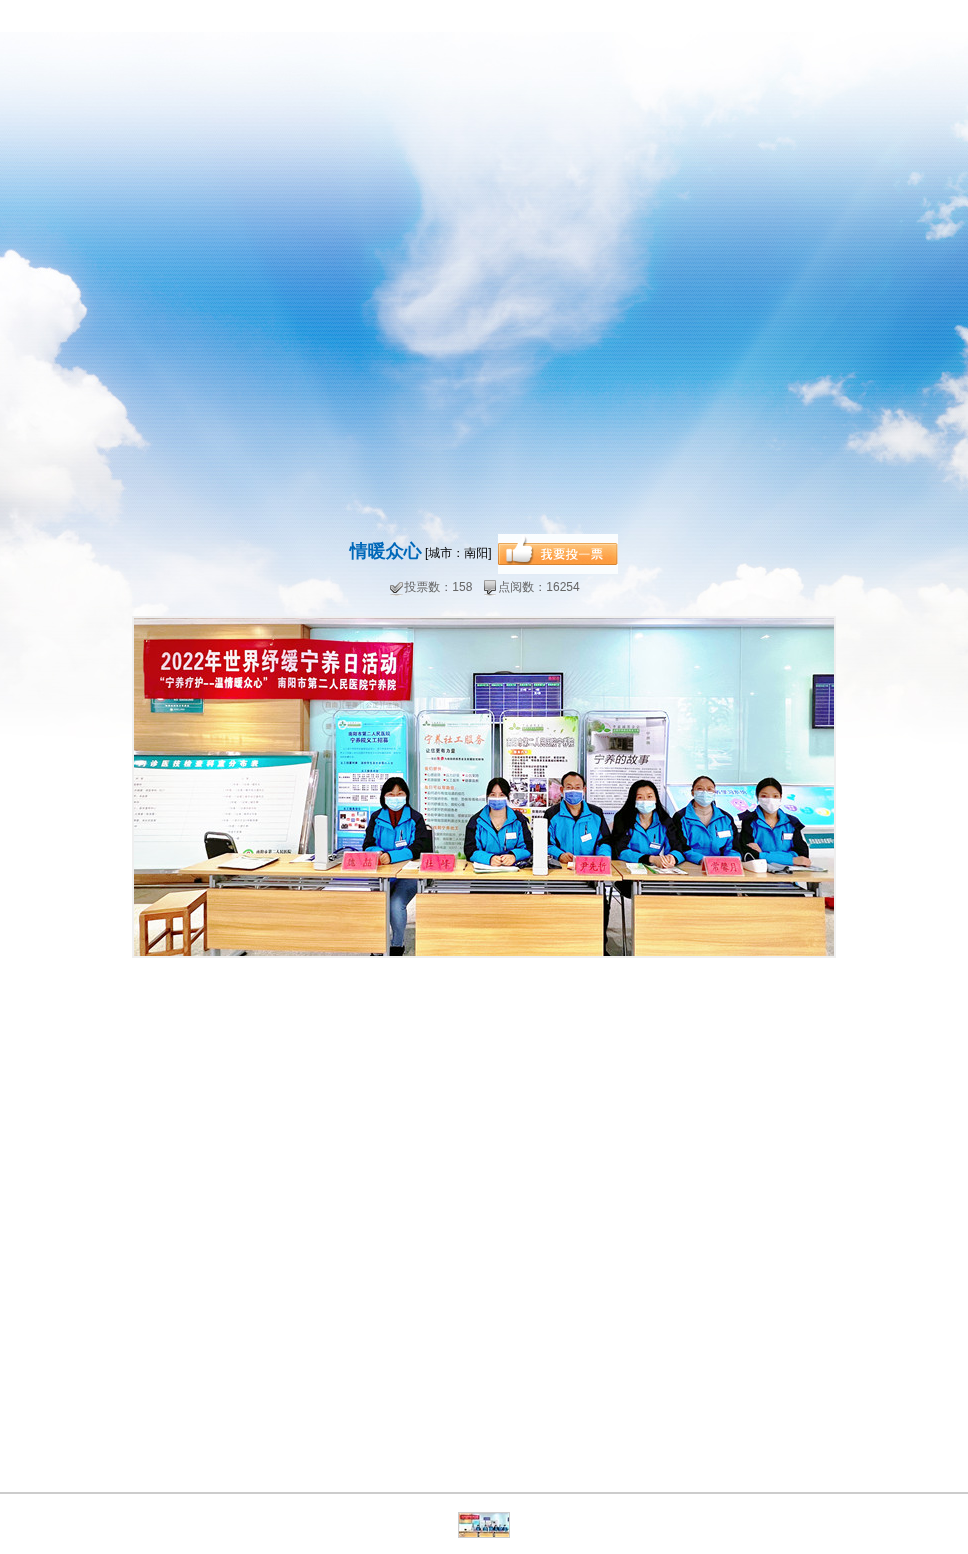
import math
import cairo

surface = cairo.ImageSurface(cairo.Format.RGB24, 968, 1554)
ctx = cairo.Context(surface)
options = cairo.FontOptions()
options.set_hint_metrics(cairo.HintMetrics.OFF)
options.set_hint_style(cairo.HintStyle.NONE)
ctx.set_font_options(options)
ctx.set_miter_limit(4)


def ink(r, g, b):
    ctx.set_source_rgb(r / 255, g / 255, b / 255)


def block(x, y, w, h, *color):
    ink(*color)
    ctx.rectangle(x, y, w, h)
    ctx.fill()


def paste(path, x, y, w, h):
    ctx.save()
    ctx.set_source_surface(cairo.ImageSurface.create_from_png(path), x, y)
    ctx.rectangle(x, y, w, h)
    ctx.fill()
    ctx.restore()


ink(255, 255, 255)
ctx.paint()
paste("pic1.png", 0, 32, 968, 926)
block(0, 1492, 968, 2, 204, 204, 204)
paste("pic2.png", 458, 1512, 52, 26)
surface.write_to_png("screenshot.png")
